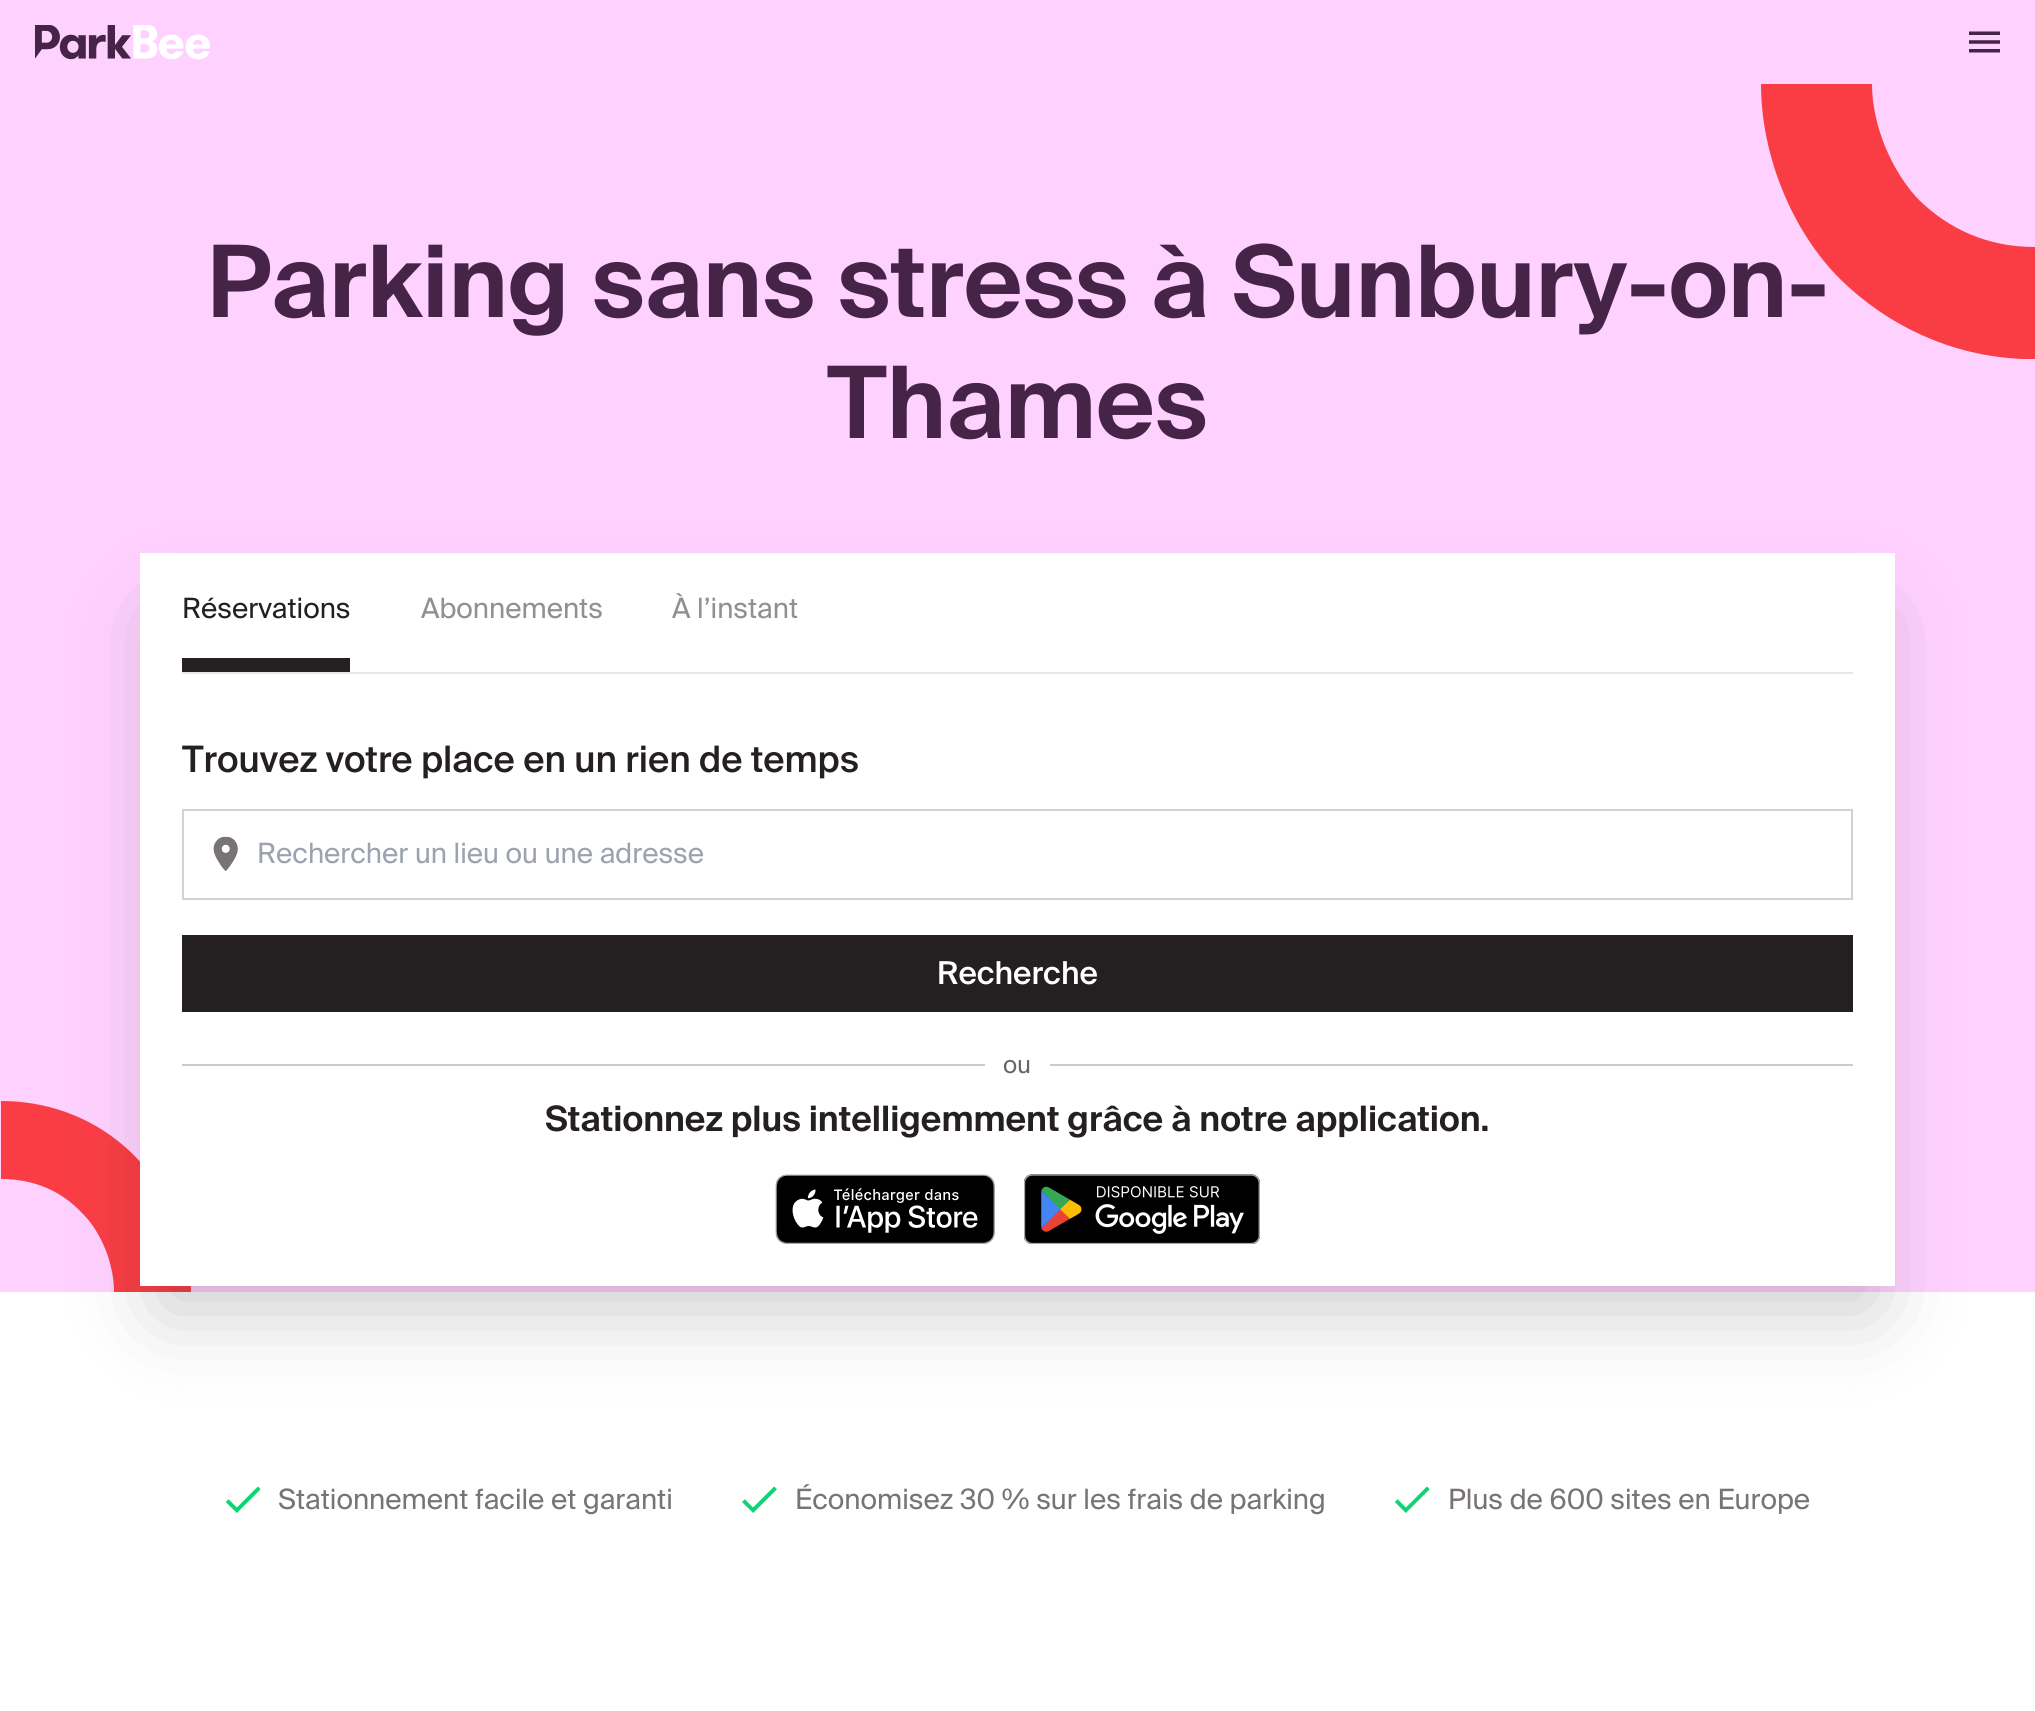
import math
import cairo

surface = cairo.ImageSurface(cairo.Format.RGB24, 2035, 1711)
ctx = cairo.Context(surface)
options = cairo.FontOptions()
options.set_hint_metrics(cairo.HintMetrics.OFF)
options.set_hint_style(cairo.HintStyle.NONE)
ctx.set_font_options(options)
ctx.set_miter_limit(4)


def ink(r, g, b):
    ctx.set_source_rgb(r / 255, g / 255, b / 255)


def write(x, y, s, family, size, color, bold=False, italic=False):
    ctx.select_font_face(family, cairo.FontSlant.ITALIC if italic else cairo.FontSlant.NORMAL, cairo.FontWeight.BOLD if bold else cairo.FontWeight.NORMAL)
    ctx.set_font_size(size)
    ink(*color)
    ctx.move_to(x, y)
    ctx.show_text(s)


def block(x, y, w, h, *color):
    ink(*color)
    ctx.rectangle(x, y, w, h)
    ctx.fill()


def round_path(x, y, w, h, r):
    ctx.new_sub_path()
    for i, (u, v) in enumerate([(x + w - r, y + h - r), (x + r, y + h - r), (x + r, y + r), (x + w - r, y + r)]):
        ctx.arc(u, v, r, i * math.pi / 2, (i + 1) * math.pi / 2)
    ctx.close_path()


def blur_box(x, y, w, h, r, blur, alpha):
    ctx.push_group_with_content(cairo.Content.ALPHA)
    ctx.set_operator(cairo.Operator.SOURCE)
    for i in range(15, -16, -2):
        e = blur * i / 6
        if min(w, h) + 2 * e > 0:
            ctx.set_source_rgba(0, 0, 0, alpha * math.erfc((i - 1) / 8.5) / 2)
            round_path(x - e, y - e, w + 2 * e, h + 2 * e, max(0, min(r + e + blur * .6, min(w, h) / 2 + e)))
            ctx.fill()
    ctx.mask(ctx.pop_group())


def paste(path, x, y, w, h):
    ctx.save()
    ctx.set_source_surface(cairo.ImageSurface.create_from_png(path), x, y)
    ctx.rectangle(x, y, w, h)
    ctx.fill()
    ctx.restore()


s1 = dict(family="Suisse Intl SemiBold", size=99.75, color=(69, 36, 71))
s2 = dict(family="Suisse Intl", size=28, color=(36, 31, 33))
s3 = dict(family="Suisse Intl", size=28, color=(145, 143, 144))
s4 = dict(family="Suisse Intl Medium", size=36.4, color=(36, 31, 33))
s5 = dict(family="Suisse Intl", size=28, color=(156, 163, 175))
s6 = dict(family="Suisse Intl Medium", size=31.5, color=(255, 255, 255))
s7 = dict(family="Suisse Intl", size=24, color=(102, 102, 102))
s8 = dict(family="Suisse Intl SemiBold", size=35, color=(36, 31, 33))
s9 = dict(family="Suisse Intl", size=28, color=(120, 115, 117))

ink(255, 255, 255)
ctx.paint()
block(0, 0, 2035, 1292, 255, 209, 255)
paste("pic1.png", 35, 25, 175, 35)
paste("pic2.png", 1969, 31, 31, 22)
ink(250, 61, 69)
ctx.new_path()
ctx.move_to(1872, 84)
ctx.curve_to(1872, 127, 1893, 173, 1919, 200)
ctx.curve_to(1949, 229, 1987, 247, 2035, 247)
ctx.line_to(2035, 359)
ctx.line_to(2023, 359)
ctx.curve_to(1950, 356, 1887, 325, 1840, 279)
ctx.curve_to(1793, 232, 1761, 157, 1761, 84)
ctx.close_path()
ctx.fill()
write(207, 317, "Parking sans stress à Sunbury-on-", **s1)
write(827, 438, "Thames", **s1)
ink(250, 61, 69)
ctx.new_path()
ctx.move_to(114, 1292)
ctx.line_to(191, 1292)
ctx.curve_to(191, 1265, 185, 1239, 174, 1214)
ctx.curve_to(143, 1144, 77, 1101, 1, 1101)
ctx.line_to(1, 1179)
ctx.curve_to(34, 1179, 61, 1191, 81, 1212)
ctx.curve_to(100, 1230, 114, 1262, 114, 1292)
ctx.close_path()
ctx.fill()
ink(36, 31, 33)
blur_box(161, 618, 1713, 691, 0, 44, 0.24)
block(140, 553, 1755, 733, 255, 255, 255)
block(182, 672, 1671, 2, 229, 231, 235)
block(182, 658, 168, 14, 36, 31, 33)
write(182, 618, "Réservations", **s2)
write(421, 618, "Abonnements", **s3)
write(672, 618, "À l’instant", **s3)
write(182, 772, "Trouvez votre place en un rien de temps", **s4)
ctx.rectangle(183, 810, 1669, 89)
ink(211, 210, 211)
ctx.stroke()
paste("pic3.png", 213, 836, 25, 36)
write(257, 863, "Rechercher un lieu ou une adresse", **s5)
block(182, 935, 1671, 77, 36, 31, 33)
write(937, 984, "Recherche", **s6)
block(182, 1064, 803, 2, 204, 204, 204)
write(1003, 1073, "ou", **s7)
block(1050, 1064, 803, 2, 204, 204, 204)
write(545, 1131, "Stationnez plus intelligemment grâce à notre application.", **s8)
paste("pic4.png", 775, 1174, 220, 70)
paste("pic5.png", 1024, 1174, 236, 70)
paste("pic6.png", 226, 1486, 35, 27)
write(278, 1509, "Stationnement facile et garanti", **s9)
paste("pic7.png", 742, 1486, 35, 27)
write(795, 1509, "Économisez 30 % sur les frais de parking", **s9)
paste("pic8.png", 1395, 1486, 35, 27)
write(1448, 1509, "Plus de 600 sites en Europe", **s9)
surface.write_to_png("screenshot.png")
